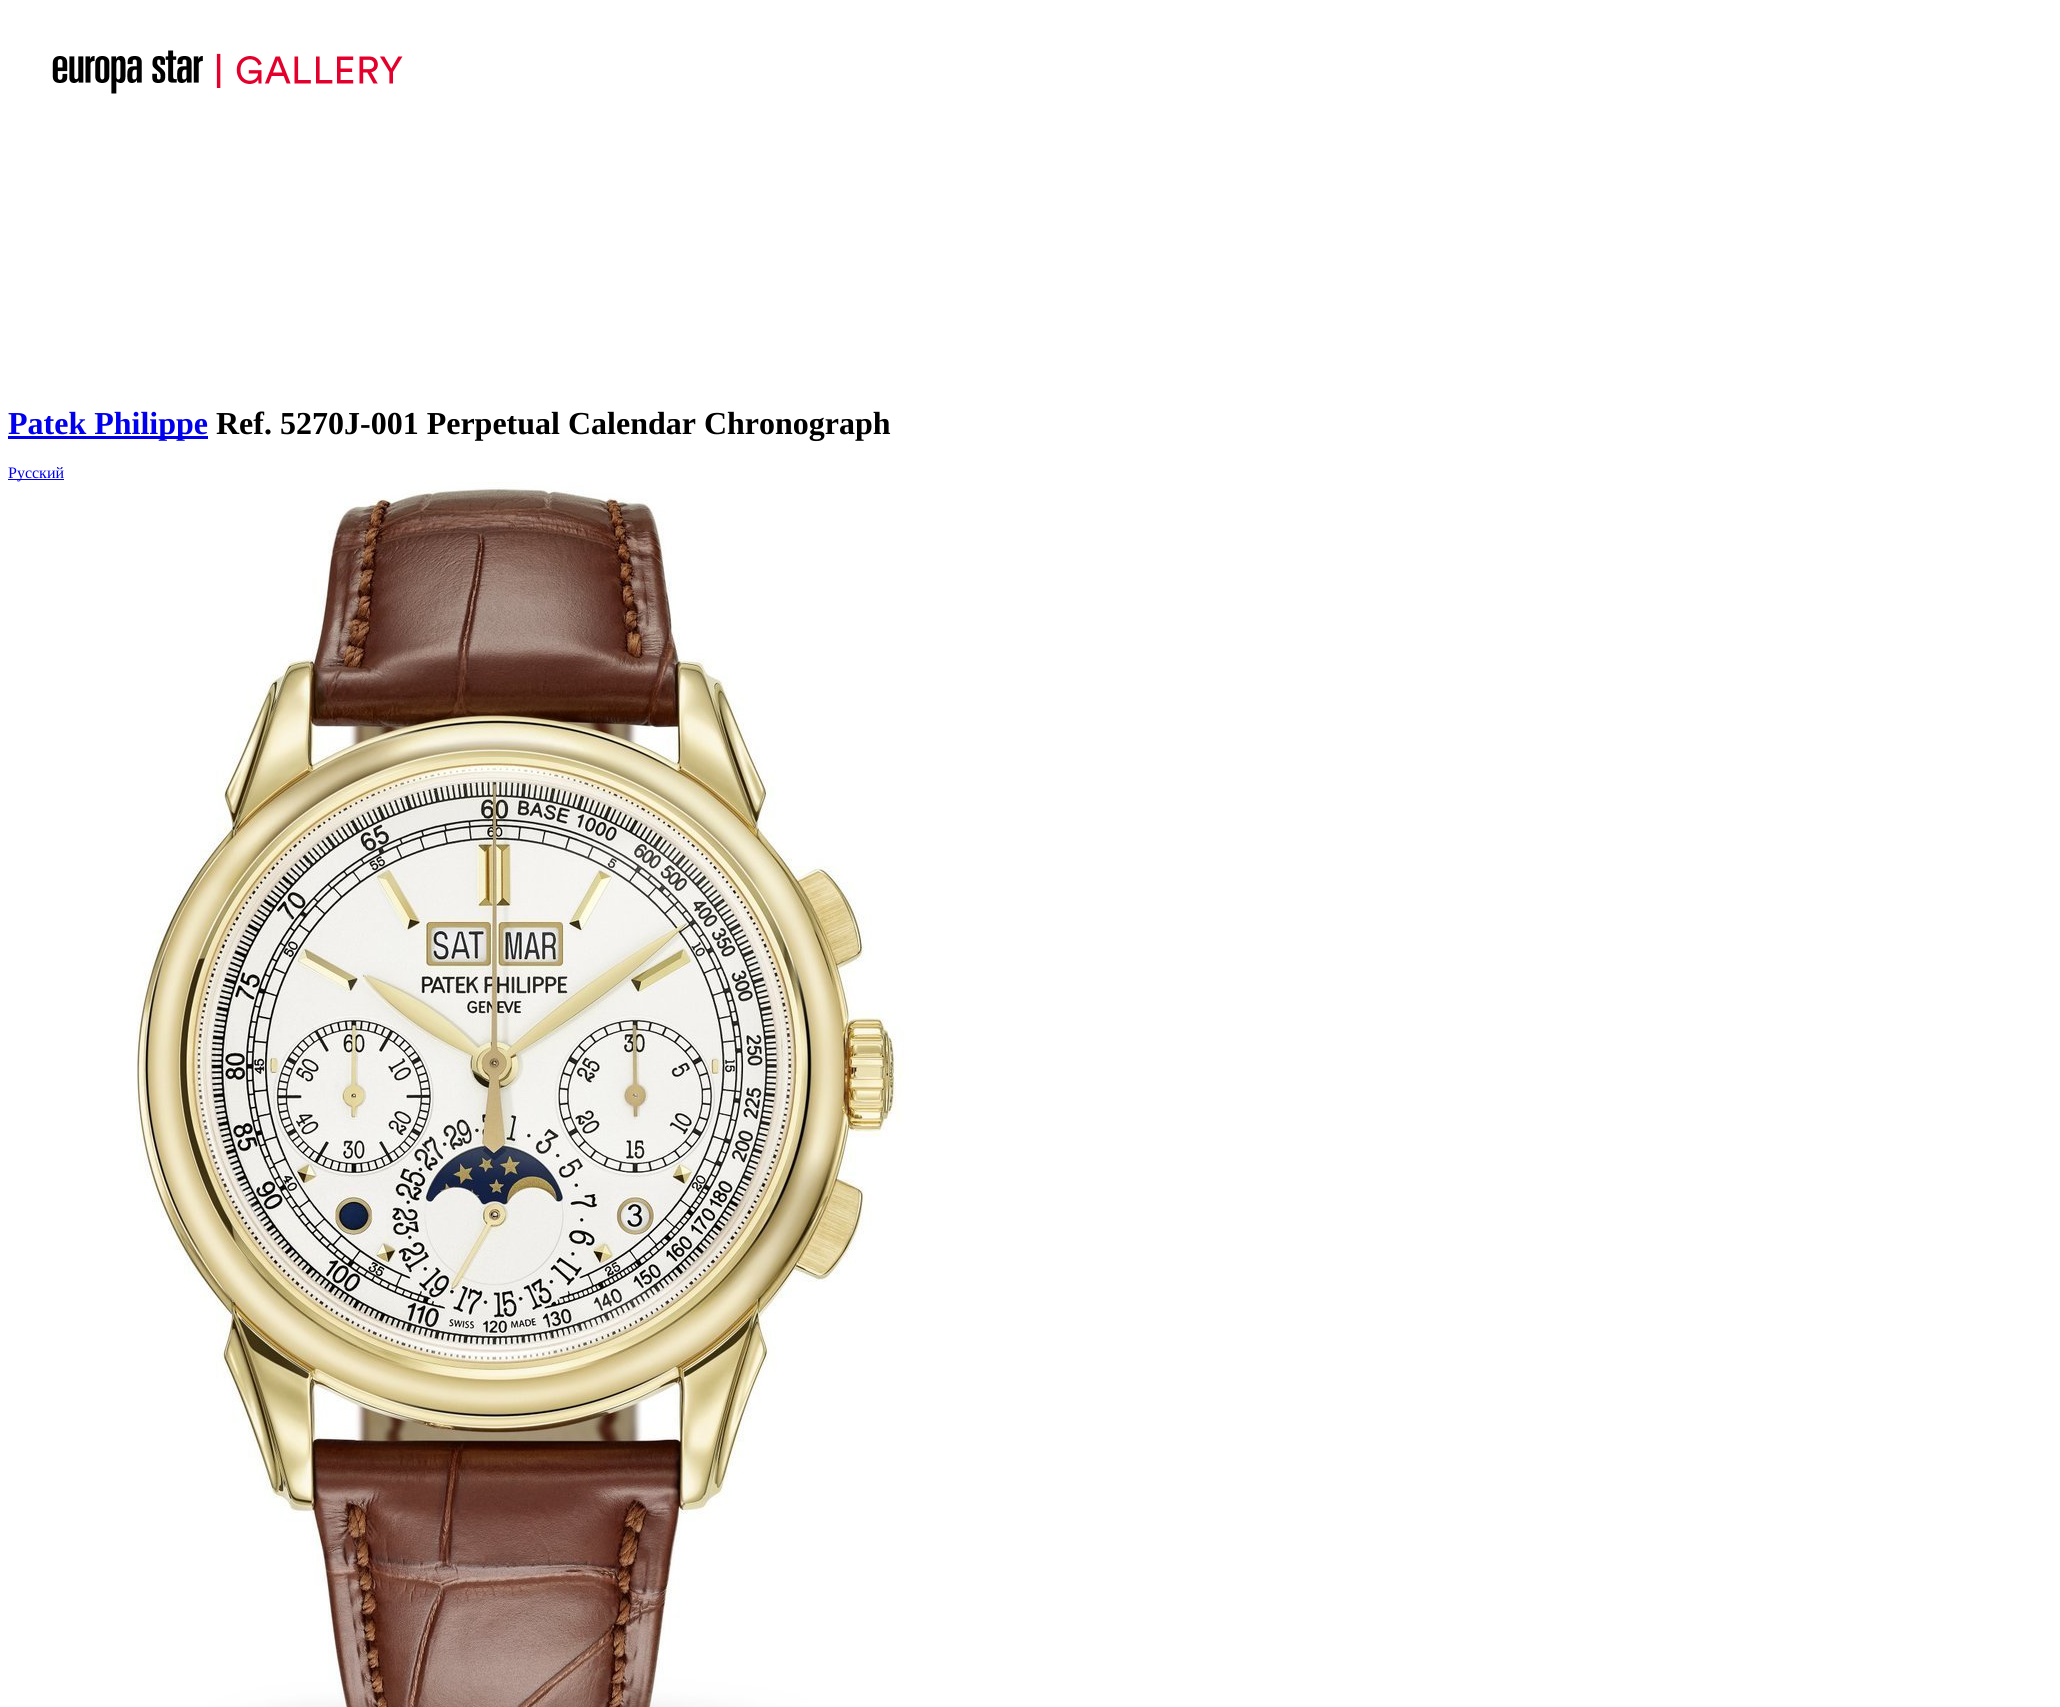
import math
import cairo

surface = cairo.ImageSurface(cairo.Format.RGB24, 2060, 1707)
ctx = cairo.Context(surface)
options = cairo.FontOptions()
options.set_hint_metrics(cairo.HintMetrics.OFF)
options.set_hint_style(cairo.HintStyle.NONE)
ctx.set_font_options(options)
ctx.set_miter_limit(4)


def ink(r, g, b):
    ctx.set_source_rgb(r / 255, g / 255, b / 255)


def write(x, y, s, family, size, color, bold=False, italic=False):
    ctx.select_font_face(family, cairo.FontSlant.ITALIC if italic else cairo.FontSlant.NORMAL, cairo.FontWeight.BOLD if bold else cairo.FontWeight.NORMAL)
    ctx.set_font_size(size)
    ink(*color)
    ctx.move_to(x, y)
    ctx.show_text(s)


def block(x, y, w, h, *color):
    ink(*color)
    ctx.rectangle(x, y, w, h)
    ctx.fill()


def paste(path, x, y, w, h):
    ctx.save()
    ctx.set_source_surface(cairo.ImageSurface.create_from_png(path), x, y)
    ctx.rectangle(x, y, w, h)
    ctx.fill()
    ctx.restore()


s1 = dict(family="Liberation Serif", size=32, color=(0, 0, 238), bold=True)
s2 = dict(family="Liberation Serif", size=32, color=(0, 0, 0), bold=True)
s3 = dict(family="Liberation Serif", size=16, color=(0, 0, 238))

ink(255, 255, 255)
ctx.paint()
paste("pic1.png", 52, 50, 351, 44)
block(8, 436, 200, 3, 0, 0, 238)
write(8, 434, "Patek Philippe", **s1)
write(216, 434, "Ref. 5270J-001 Perpetual Calendar Chronograph", **s2)
block(8, 479, 56, 1, 0, 0, 238)
write(8, 478, "Pусский", **s3)
paste("pic2.png", 136, 482, 768, 1225)
surface.write_to_png("screenshot.png")
